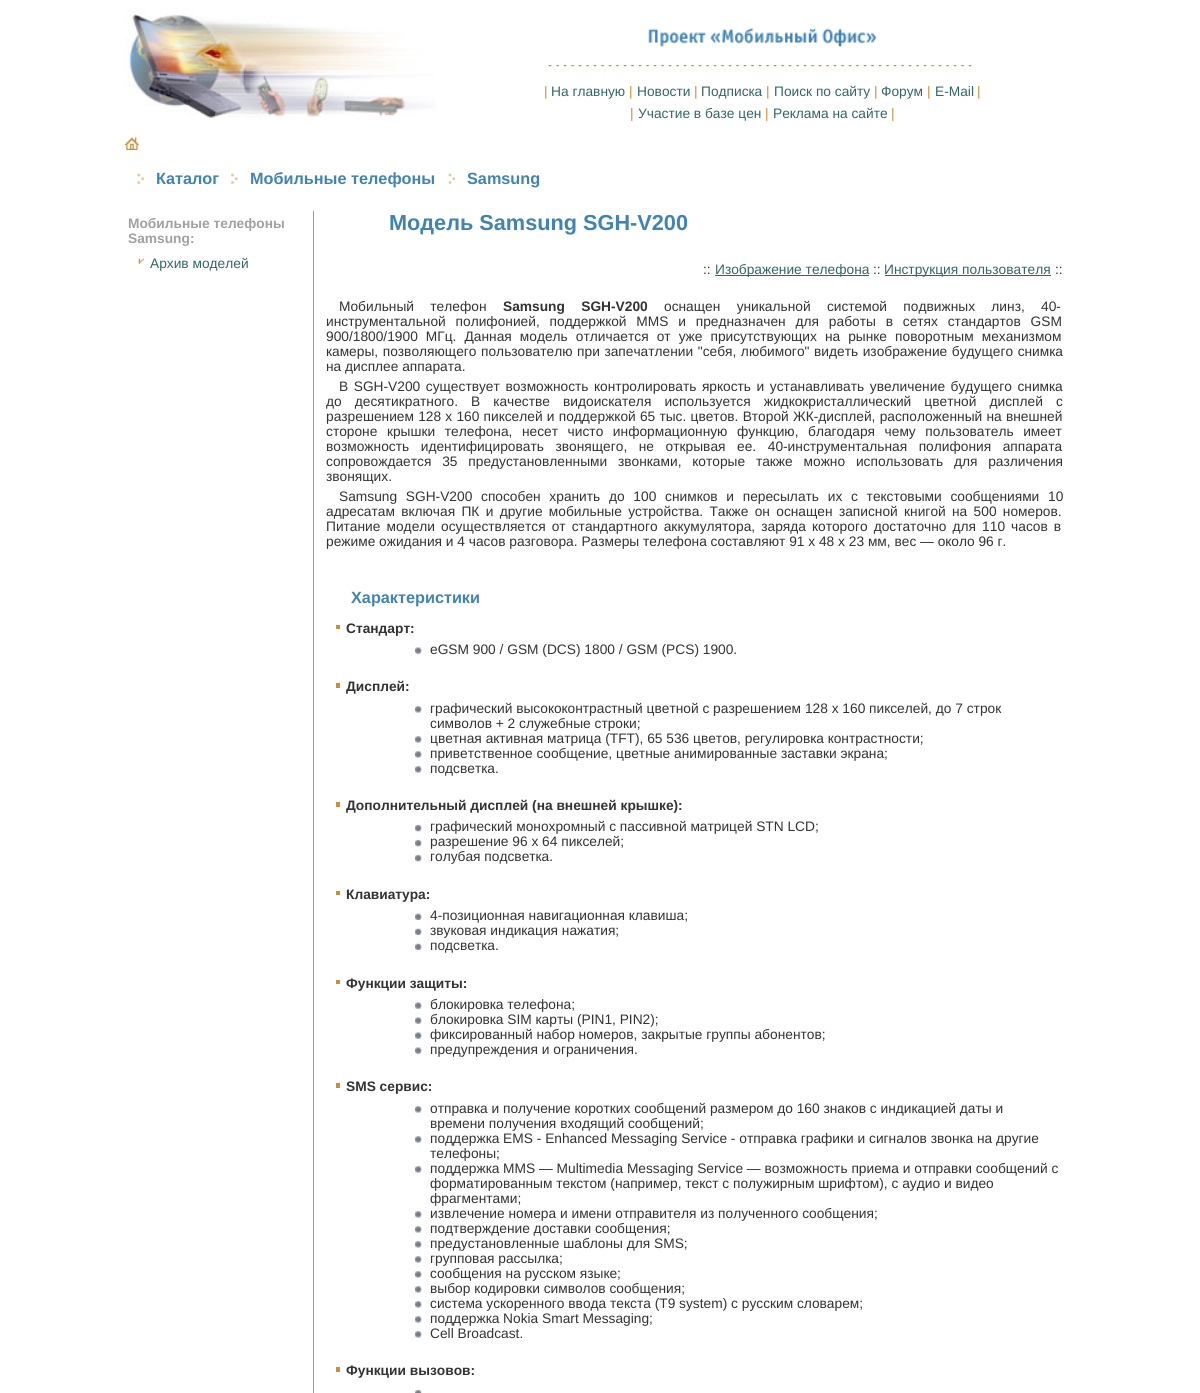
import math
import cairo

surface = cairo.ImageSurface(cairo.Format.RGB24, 1200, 1393)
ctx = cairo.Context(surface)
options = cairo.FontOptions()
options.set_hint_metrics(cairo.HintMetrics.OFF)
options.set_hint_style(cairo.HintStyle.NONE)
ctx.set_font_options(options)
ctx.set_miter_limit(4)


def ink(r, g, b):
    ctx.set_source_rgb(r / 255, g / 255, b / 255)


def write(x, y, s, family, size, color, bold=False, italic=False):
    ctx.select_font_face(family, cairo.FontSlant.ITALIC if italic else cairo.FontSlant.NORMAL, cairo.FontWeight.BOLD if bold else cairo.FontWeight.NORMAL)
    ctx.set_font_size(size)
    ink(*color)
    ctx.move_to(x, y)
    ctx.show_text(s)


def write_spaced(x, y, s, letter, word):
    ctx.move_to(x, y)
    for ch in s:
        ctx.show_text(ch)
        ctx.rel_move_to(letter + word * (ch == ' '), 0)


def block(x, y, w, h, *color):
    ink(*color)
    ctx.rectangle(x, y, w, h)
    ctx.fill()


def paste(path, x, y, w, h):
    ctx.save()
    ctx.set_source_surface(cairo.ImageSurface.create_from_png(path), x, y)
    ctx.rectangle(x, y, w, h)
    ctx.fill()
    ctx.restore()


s1 = dict(family="Liberation Sans", size=13.75, color=(207, 141, 52))
s2 = dict(family="Liberation Sans", size=13.75, color=(51, 102, 102))
s3 = dict(family="Liberation Sans", size=16.25, color=(63, 132, 178), bold=True)
s4 = dict(family="Liberation Sans", size=13.75, color=(161, 161, 161), bold=True)
s5 = dict(family="Liberation Sans", size=21.7, color=(63, 132, 178), bold=True)
s6 = dict(family="Liberation Sans", size=13.75, color=(51, 51, 51))
s7 = dict(family="Liberation Sans", size=13.75, color=(51, 51, 51), bold=True)

ink(255, 255, 255)
ctx.paint()
paste("pic1.png", 125, 7, 311, 111)
paste("pic2.png", 648, 27, 229, 20)
paste("pic3.png", 548, 65, 139, 2)
paste("pic4.png", 691, 65, 138, 2)
paste("pic3.png", 833, 65, 139, 2)
write(544, 96, "|", **s1)
write(551, 96, "На главную", **s2)
write(629, 96, "|", **s1)
write(637, 96, "Новости", **s2)
write(694, 96, "|", **s1)
write(701, 96, "Подписка", **s2)
write(766, 96, "|", **s1)
write(774, 96, "Поиск по сайту", **s2)
write(874, 96, "|", **s1)
write(881, 96, "Форум", **s2)
write(927, 96, "|", **s1)
write(935, 96, "E-Mail", **s2)
write(977, 96, "|", **s1)
ctx.set_source_rgba(1, 1, 1, 0.25)
ctx.rectangle(545, 98, 435, 1)
ctx.fill()
write(630, 118, "|", **s1)
write(638, 118, "Участие в базе цен", **s2)
write(765, 118, "|", **s1)
write(773, 118, "Реклама на сайте", **s2)
write(891, 118, "|", **s1)
paste("pic5.png", 125, 137, 14, 13)
paste("pic6.png", 137, 173, 7, 11)
write(156, 184, "Каталог", **s3)
paste("pic7.png", 231, 173, 7, 11)
write(250, 184, "Мобильные телефоны", **s3)
paste("pic8.png", 448, 173, 7, 11)
write(467, 184, "Samsung", **s3)
write(128, 228, "Мобильные телефоны", **s4)
write(128, 243, "Samsung:", **s4)
paste("pic9.png", 138, 258, 6, 6)
write(150, 268, "Архив моделей", **s2)
block(313, 210, 1, 1183, 207, 141, 52)
paste("pic10.png", 313, 210, 1, 2)
write(389, 230, "Модель Samsung SGH-V200", **s5)
write(703, 274, "::", **s6)
block(715, 275, 154, 1, 51, 102, 102)
write(715, 274, "Изображение телефона", **s2)
write(873, 274, "::", **s6)
block(885, 275, 166, 1, 51, 102, 102)
write(884, 274, "Инструкция пользователя", **s2)
write(1055, 274, "::", **s6)
write_spaced(339, 311, "Мобильный телефон", 0, 12.5)
ctx.select_font_face("Liberation Sans", cairo.FontSlant.NORMAL, cairo.FontWeight.BOLD)
write_spaced(503, 311, "Samsung SGH-V200", 0, 12.5)
ctx.select_font_face("Liberation Sans")
write_spaced(664, 311, "оснащен уникальной системой подвижных линз, 40-", 0, 12.5)
write_spaced(326, 326, "инструментальной полифонией, поддержкой MMS и предназначен для работы в сетях стандартов GSM", 0, 6)
write_spaced(326, 341, "900/1800/1900 МГц. Данная модель отличается от уже присутствующих на рынке поворотным механизмом", 0, 4.25)
write_spaced(326, 356, "камеры, позволяющего пользователю при запечатлении \"себя, любимого\" видеть изображение будущего снимка", 0, 0.75)
write(326, 371, "на дисплее аппарата.", **s6)
write_spaced(339, 391, "В SGH-V200 существует возможность контролировать яркость и устанавливать увеличение будущего снимка", 0, 1.75)
write_spaced(326, 406, "до десятикратного. В качестве видоискателя используется жидкокристаллический цветной дисплей с", 0, 9.25)
write_spaced(326, 421, "разрешением 128 x 160 пикселей и поддержкой 65 тыс. цветов. Второй ЖК-дисплей, расположенный на внешней", 0, 0.4)
write_spaced(326, 436, "стороне крышки телефона, несет чисто информационную функцию, благодаря чему пользователь имеет", 0, 5.75)
write_spaced(326, 451, "возможность идентифицировать звонящего, не открывая ее. 40-инструментальная полифония аппарата", 0, 7.75)
write_spaced(326, 466, "сопровождается 35 предустановленными звонками, которые также можно использовать для различения", 0, 7)
write(326, 481, "звонящих.", **s6)
write_spaced(339, 501, "Samsung SGH-V200 способен хранить до 100 снимков и пересылать их с текстовыми сообщениями 10", 0, 4.9)
write_spaced(326, 516, "адресатам включая ПК и другие мобильные устройства. Также он оснащен записной книгой на 500 номеров.", 0, 2.5)
write_spaced(326, 531, "Питание модели осуществляется от стандартного аккумулятора, заряда которого достаточно для 110 часов в", 0, 2.25)
write(326, 546, "режиме ожидания и 4 часов разговора. Размеры телефона составляют 91 x 48 x 23 мм, вес — около 96 г.", **s6)
write(351, 603, "Характеристики", **s3)
block(336, 625, 4, 4, 207, 141, 52)
write(346, 633, "Стандарт:", **s7)
paste("pic11.png", 415, 647, 7, 7)
write(430, 654, "eGSM 900 / GSM (DCS) 1800 / GSM (PCS) 1900.", **s6)
block(336, 683, 4, 5, 207, 141, 52)
write(346, 691, "Дисплей:", **s7)
paste("pic12.png", 415, 706, 7, 7)
write(430, 713, "графический высококонтрастный цветной с разрешением 128 x 160 пикселей, до 7 строк", **s6)
write(430, 728, "символов + 2 служебные строки;", **s6)
paste("pic12.png", 415, 736, 7, 7)
write(430, 743, "цветная активная матрица (TFT), 65 536 цветов, регулировка контрастности;", **s6)
paste("pic12.png", 415, 751, 7, 7)
write(430, 758, "приветственное сообщение, цветные анимированные заставки экрана;", **s6)
paste("pic12.png", 415, 766, 7, 7)
write(430, 773, "подсветка.", **s6)
block(336, 802, 4, 5, 207, 141, 52)
write(346, 810, "Дополнительный дисплей (на внешней крышке):", **s7)
paste("pic13.png", 415, 824, 7, 8)
write(430, 831, "графический монохромный с пассивной матрицей STN LCD;", **s6)
paste("pic13.png", 415, 839, 7, 8)
write(430, 846, "разрешение 96 x 64 пикселей;", **s6)
paste("pic13.png", 415, 854, 7, 8)
write(430, 861, "голубая подсветка.", **s6)
block(336, 891, 4, 4, 207, 141, 52)
write(346, 899, "Клавиатура:", **s7)
paste("pic14.png", 415, 913, 7, 7)
write(430, 920, "4-позиционная навигационная клавиша;", **s6)
paste("pic14.png", 415, 928, 7, 7)
write(430, 935, "звуковая индикация нажатия;", **s6)
paste("pic14.png", 415, 943, 7, 7)
write(430, 950, "подсветка.", **s6)
block(336, 980, 4, 4, 207, 141, 52)
write(346, 988, "Функции защиты:", **s7)
paste("pic11.png", 415, 1002, 7, 7)
write(430, 1009, "блокировка телефона;", **s6)
paste("pic11.png", 415, 1017, 7, 7)
write(430, 1024, "блокировка SIM карты (PIN1, PIN2);", **s6)
paste("pic11.png", 415, 1032, 7, 7)
write(430, 1039, "фиксированный набор номеров, закрытые группы абонентов;", **s6)
paste("pic11.png", 415, 1047, 7, 7)
write(430, 1054, "предупреждения и ограничения.", **s6)
block(336, 1083, 4, 5, 207, 141, 52)
write(346, 1091, "SMS сервис:", **s7)
paste("pic12.png", 415, 1106, 7, 7)
write(430, 1113, "отправка и получение коротких сообщений размером до 160 знаков с индикацией даты и", **s6)
write(430, 1128, "времени получения входящий сообщений;", **s6)
paste("pic12.png", 415, 1136, 7, 7)
write(430, 1143, "поддержка EMS - Enhanced Messaging Service - отправка графики и сигналов звонка на другие", **s6)
write(430, 1158, "телефоны;", **s6)
paste("pic12.png", 415, 1166, 7, 7)
write(430, 1173, "поддержка MMS — Multimedia Messaging Service — возможность приема и отправки сообщений с", **s6)
write(430, 1188, "форматированным текстом (например, текст с полужирным шрифтом), с аудио и видео", **s6)
write(430, 1203, "фрагментами;", **s6)
paste("pic12.png", 415, 1211, 7, 7)
write(430, 1218, "извлечение номера и имени отправителя из полученного сообщения;", **s6)
paste("pic12.png", 415, 1226, 7, 7)
write(430, 1233, "подтверждение доставки сообщения;", **s6)
paste("pic12.png", 415, 1241, 7, 7)
write(430, 1248, "предустановленные шаблоны для SMS;", **s6)
paste("pic12.png", 415, 1256, 7, 7)
write(430, 1263, "групповая рассылка;", **s6)
paste("pic12.png", 415, 1271, 7, 7)
write(430, 1278, "сообщения на русском языке;", **s6)
paste("pic12.png", 415, 1286, 7, 7)
write(430, 1293, "выбор кодировки символов сообщения;", **s6)
paste("pic12.png", 415, 1301, 7, 7)
write(430, 1308, "система ускоренного ввода текста (T9 system) с русским словарем;", **s6)
paste("pic12.png", 415, 1316, 7, 7)
write(430, 1323, "поддержка Nokia Smart Messaging;", **s6)
paste("pic12.png", 415, 1331, 7, 7)
write(430, 1338, "Cell Broadcast.", **s6)
block(336, 1367, 4, 5, 207, 141, 52)
write(346, 1375, "Функции вызовов:", **s7)
paste("pic15.png", 415, 1389, 7, 4)
surface.write_to_png("screenshot.png")
